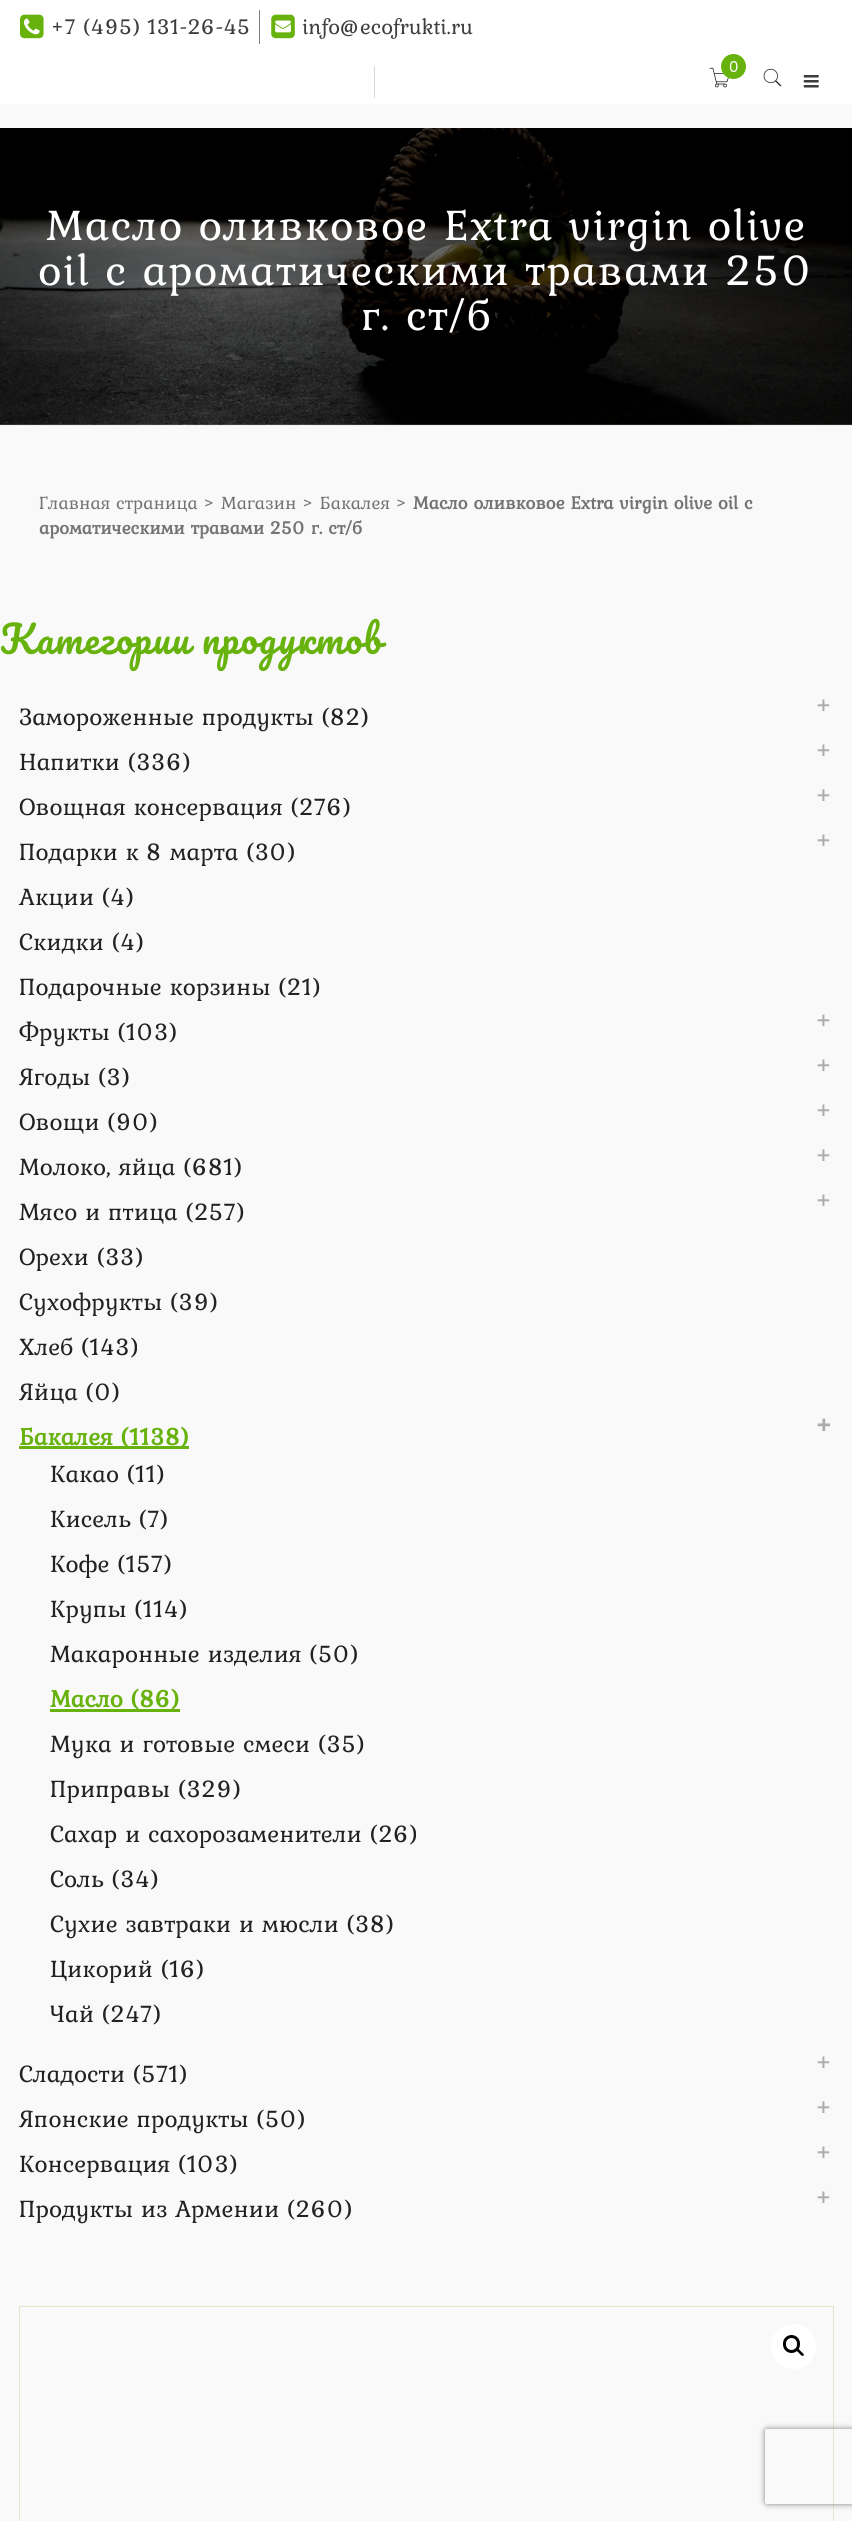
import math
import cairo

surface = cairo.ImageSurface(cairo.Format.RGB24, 852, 2521)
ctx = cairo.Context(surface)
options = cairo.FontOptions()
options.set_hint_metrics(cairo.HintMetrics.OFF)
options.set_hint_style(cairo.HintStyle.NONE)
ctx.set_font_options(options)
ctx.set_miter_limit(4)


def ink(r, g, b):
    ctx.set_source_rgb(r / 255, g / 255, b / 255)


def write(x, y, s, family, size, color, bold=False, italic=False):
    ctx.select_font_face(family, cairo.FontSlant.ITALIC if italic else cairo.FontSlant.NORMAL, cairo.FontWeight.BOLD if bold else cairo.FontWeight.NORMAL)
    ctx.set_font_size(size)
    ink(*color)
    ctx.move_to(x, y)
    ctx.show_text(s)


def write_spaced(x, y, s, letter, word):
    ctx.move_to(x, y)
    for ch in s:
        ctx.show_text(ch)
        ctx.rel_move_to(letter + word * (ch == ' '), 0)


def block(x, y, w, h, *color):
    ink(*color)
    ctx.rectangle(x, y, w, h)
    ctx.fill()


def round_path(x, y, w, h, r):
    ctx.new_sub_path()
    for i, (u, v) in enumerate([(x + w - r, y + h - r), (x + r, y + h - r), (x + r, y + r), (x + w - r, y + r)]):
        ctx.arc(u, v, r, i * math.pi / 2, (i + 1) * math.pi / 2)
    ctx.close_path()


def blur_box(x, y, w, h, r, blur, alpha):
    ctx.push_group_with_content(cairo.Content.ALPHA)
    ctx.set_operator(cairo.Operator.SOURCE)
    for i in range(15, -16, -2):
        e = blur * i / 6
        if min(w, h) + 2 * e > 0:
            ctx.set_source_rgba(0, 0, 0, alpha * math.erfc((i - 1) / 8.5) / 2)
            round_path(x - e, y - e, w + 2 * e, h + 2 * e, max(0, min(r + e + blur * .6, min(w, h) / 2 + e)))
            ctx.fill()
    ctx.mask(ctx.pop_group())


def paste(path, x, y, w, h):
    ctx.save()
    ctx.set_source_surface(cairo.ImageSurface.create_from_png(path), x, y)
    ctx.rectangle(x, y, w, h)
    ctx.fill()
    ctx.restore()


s1 = dict(family="Kurale", size=22.5, color=(63, 62, 62))
s2 = dict(family="Poppins", size=15, color=(255, 255, 255))
s3 = dict(family="Kurale", size=18.75, color=(116, 116, 116))
s4 = dict(family="Kurale", size=18.75, color=(116, 116, 116), bold=True)
s5 = dict(family="Kurale", size=30, color=(173, 173, 173))
s6 = dict(family="Kurale", size=25, color=(34, 34, 34))
s7 = dict(family="Kurale", size=30, color=(173, 173, 173), bold=True)
s8 = dict(family="Kurale", size=25, color=(103, 178, 13), bold=True)

ink(249, 249, 249)
ctx.paint()
block(0, 0, 852, 104, 255, 255, 255)
paste("pic1.png", 20, 14, 24, 25)
write(51, 34, "+7 (495) 131-26-45", **s1)
paste("pic2.png", 271, 14, 24, 25)
block(259, 10, 1, 34, 128, 128, 128)
write(302, 34, "info@ecofrukti.ru", **s1)
paste("pic3.png", 709, 67, 20, 21)
ink(103, 178, 13)
ctx.arc(733.5, 66.5, 12.5, 0, 2 * math.pi)
ctx.fill()
write(729, 72, "0", **s2)
block(374, 66, 1, 32, 215, 215, 215)
paste("pic4.png", 763, 68, 19, 19)
paste("pic5.png", 803, 75, 16, 13)
paste("pic6.png", 0, 128, 852, 298)
ctx.select_font_face("Kurale")
ctx.set_font_size(45)
ink(255, 255, 255)
write_spaced(46, 240, "Масло оливковое Extra virgin olive", 1.25, 0)
write_spaced(38, 285, "oil с ароматическими травами 250", 1.25, 0)
write_spaced(361, 330, "г. ст/б", 1.25, 0)
write(39, 509, "Главная страница > Магазин > Бакалея >", **s3)
write(413, 509, "Масло оливковое Extra virgin olive oil с", **s4)
write(39, 534, "ароматическими травами 250 г. ст/б", **s4)
ctx.select_font_face("Pacifico")
ctx.set_font_size(37.5)
ink(103, 178, 13)
write_spaced(0, 654, "Категории продуктов", 1.25, 0)
write(815, 715, "+", **s5)
write(19, 725, "Замороженные продукты (82)", **s6)
write(815, 760, "+", **s5)
write(19, 770, "Напитки (336)", **s6)
write(815, 805, "+", **s5)
write(19, 815, "Овощная консервация (276)", **s6)
write(815, 850, "+", **s5)
write(19, 860, "Подарки к 8 марта (30)", **s6)
write(19, 905, "Акции (4)", **s6)
write(19, 950, "Скидки (4)", **s6)
write(19, 995, "Подарочные корзины (21)", **s6)
write(19, 1040, "Фрукты (103)", **s6)
write(815, 1030, "+", **s5)
write(815, 1075, "+", **s5)
write(19, 1085, "Ягоды (3)", **s6)
write(815, 1120, "+", **s5)
write(19, 1130, "Овощи (90)", **s6)
write(815, 1165, "+", **s5)
write(19, 1175, "Молоко, яйца (681)", **s6)
write(815, 1210, "+", **s5)
write(19, 1220, "Мясо и птица (257)", **s6)
write(19, 1265, "Орехи (33)", **s6)
write(19, 1310, "Сухофрукты (39)", **s6)
write(19, 1355, "Хлеб (143)", **s6)
write(19, 1400, "Яйца (0)", **s6)
write(815, 1435, "+", **s7)
block(19, 1446, 170, 3, 103, 178, 13)
write(19, 1445, "Бакалея (1138)", **s8)
write(50, 1482, "Какао (11)", **s6)
write(50, 1527, "Кисель (7)", **s6)
write(50, 1572, "Кофе (157)", **s6)
write(50, 1617, "Крупы (114)", **s6)
write(50, 1662, "Макаронные изделия (50)", **s6)
block(50, 1709, 130, 3, 103, 178, 13)
write(50, 1707, "Масло (86)", **s8)
write(50, 1752, "Мука и готовые смеси (35)", **s6)
write(50, 1797, "Приправы (329)", **s6)
write(50, 1842, "Сахар и сахорозаменители (26)", **s6)
write(50, 1887, "Соль (34)", **s6)
write(50, 1932, "Сухие завтраки и мюсли (38)", **s6)
write(50, 1977, "Цикорий (16)", **s6)
write(50, 2022, "Чай (247)", **s6)
write(815, 2072, "+", **s5)
write(19, 2082, "Сладости (571)", **s6)
write(815, 2117, "+", **s5)
write(19, 2127, "Японские продукты (50)", **s6)
write(815, 2162, "+", **s5)
write(19, 2172, "Консервация (103)", **s6)
write(815, 2207, "+", **s5)
write(19, 2217, "Продукты из Армении (260)", **s6)
ctx.rectangle(19.5, 2306.5, 814, 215)
ink(220, 235, 202)
ctx.set_line_width(1)
ctx.stroke()
ink(255, 255, 255)
ctx.arc(793.5, 2346.5, 22.5, 0, 2 * math.pi)
ctx.fill()
round_path(784.5, 2336.5, 14, 15, 7)
ink(0, 0, 0)
ctx.set_line_width(3)
ctx.stroke()
ctx.new_path()
ctx.move_to(796.5, 2348.5)
ctx.curve_to(798, 2347.5, 800, 2350.5, 801, 2351.5)
ctx.curve_to(801.5, 2352, 805, 2354.5, 803.5, 2355.5)
ctx.curve_to(802, 2357, 800, 2354, 799, 2353)
ctx.curve_to(798.5, 2352.5, 795, 2350, 796.5, 2348.5)
ctx.close_path()
ctx.fill()
ctx.save()
ctx.set_fill_rule(cairo.FillRule.EVEN_ODD)
ctx.new_path()
ctx.move_to(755, 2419)
ctx.line_to(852, 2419)
ctx.line_to(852, 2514)
ctx.line_to(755, 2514)
ctx.close_path()
ctx.move_to(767.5, 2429)
ctx.line_to(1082.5, 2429)
ctx.curve_to(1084, 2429, 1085, 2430, 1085, 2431.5)
ctx.line_to(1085, 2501.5)
ctx.curve_to(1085, 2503, 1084, 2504, 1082.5, 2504)
ctx.line_to(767.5, 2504)
ctx.curve_to(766, 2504, 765, 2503, 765, 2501.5)
ctx.line_to(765, 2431.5)
ctx.curve_to(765, 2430, 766, 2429, 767.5, 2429)
ctx.close_path()
ctx.clip()
ink(128, 128, 128)
blur_box(765, 2429, 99, 75, 2.5, 3, 1)
ctx.restore()
surface.write_to_png("screenshot.png")
